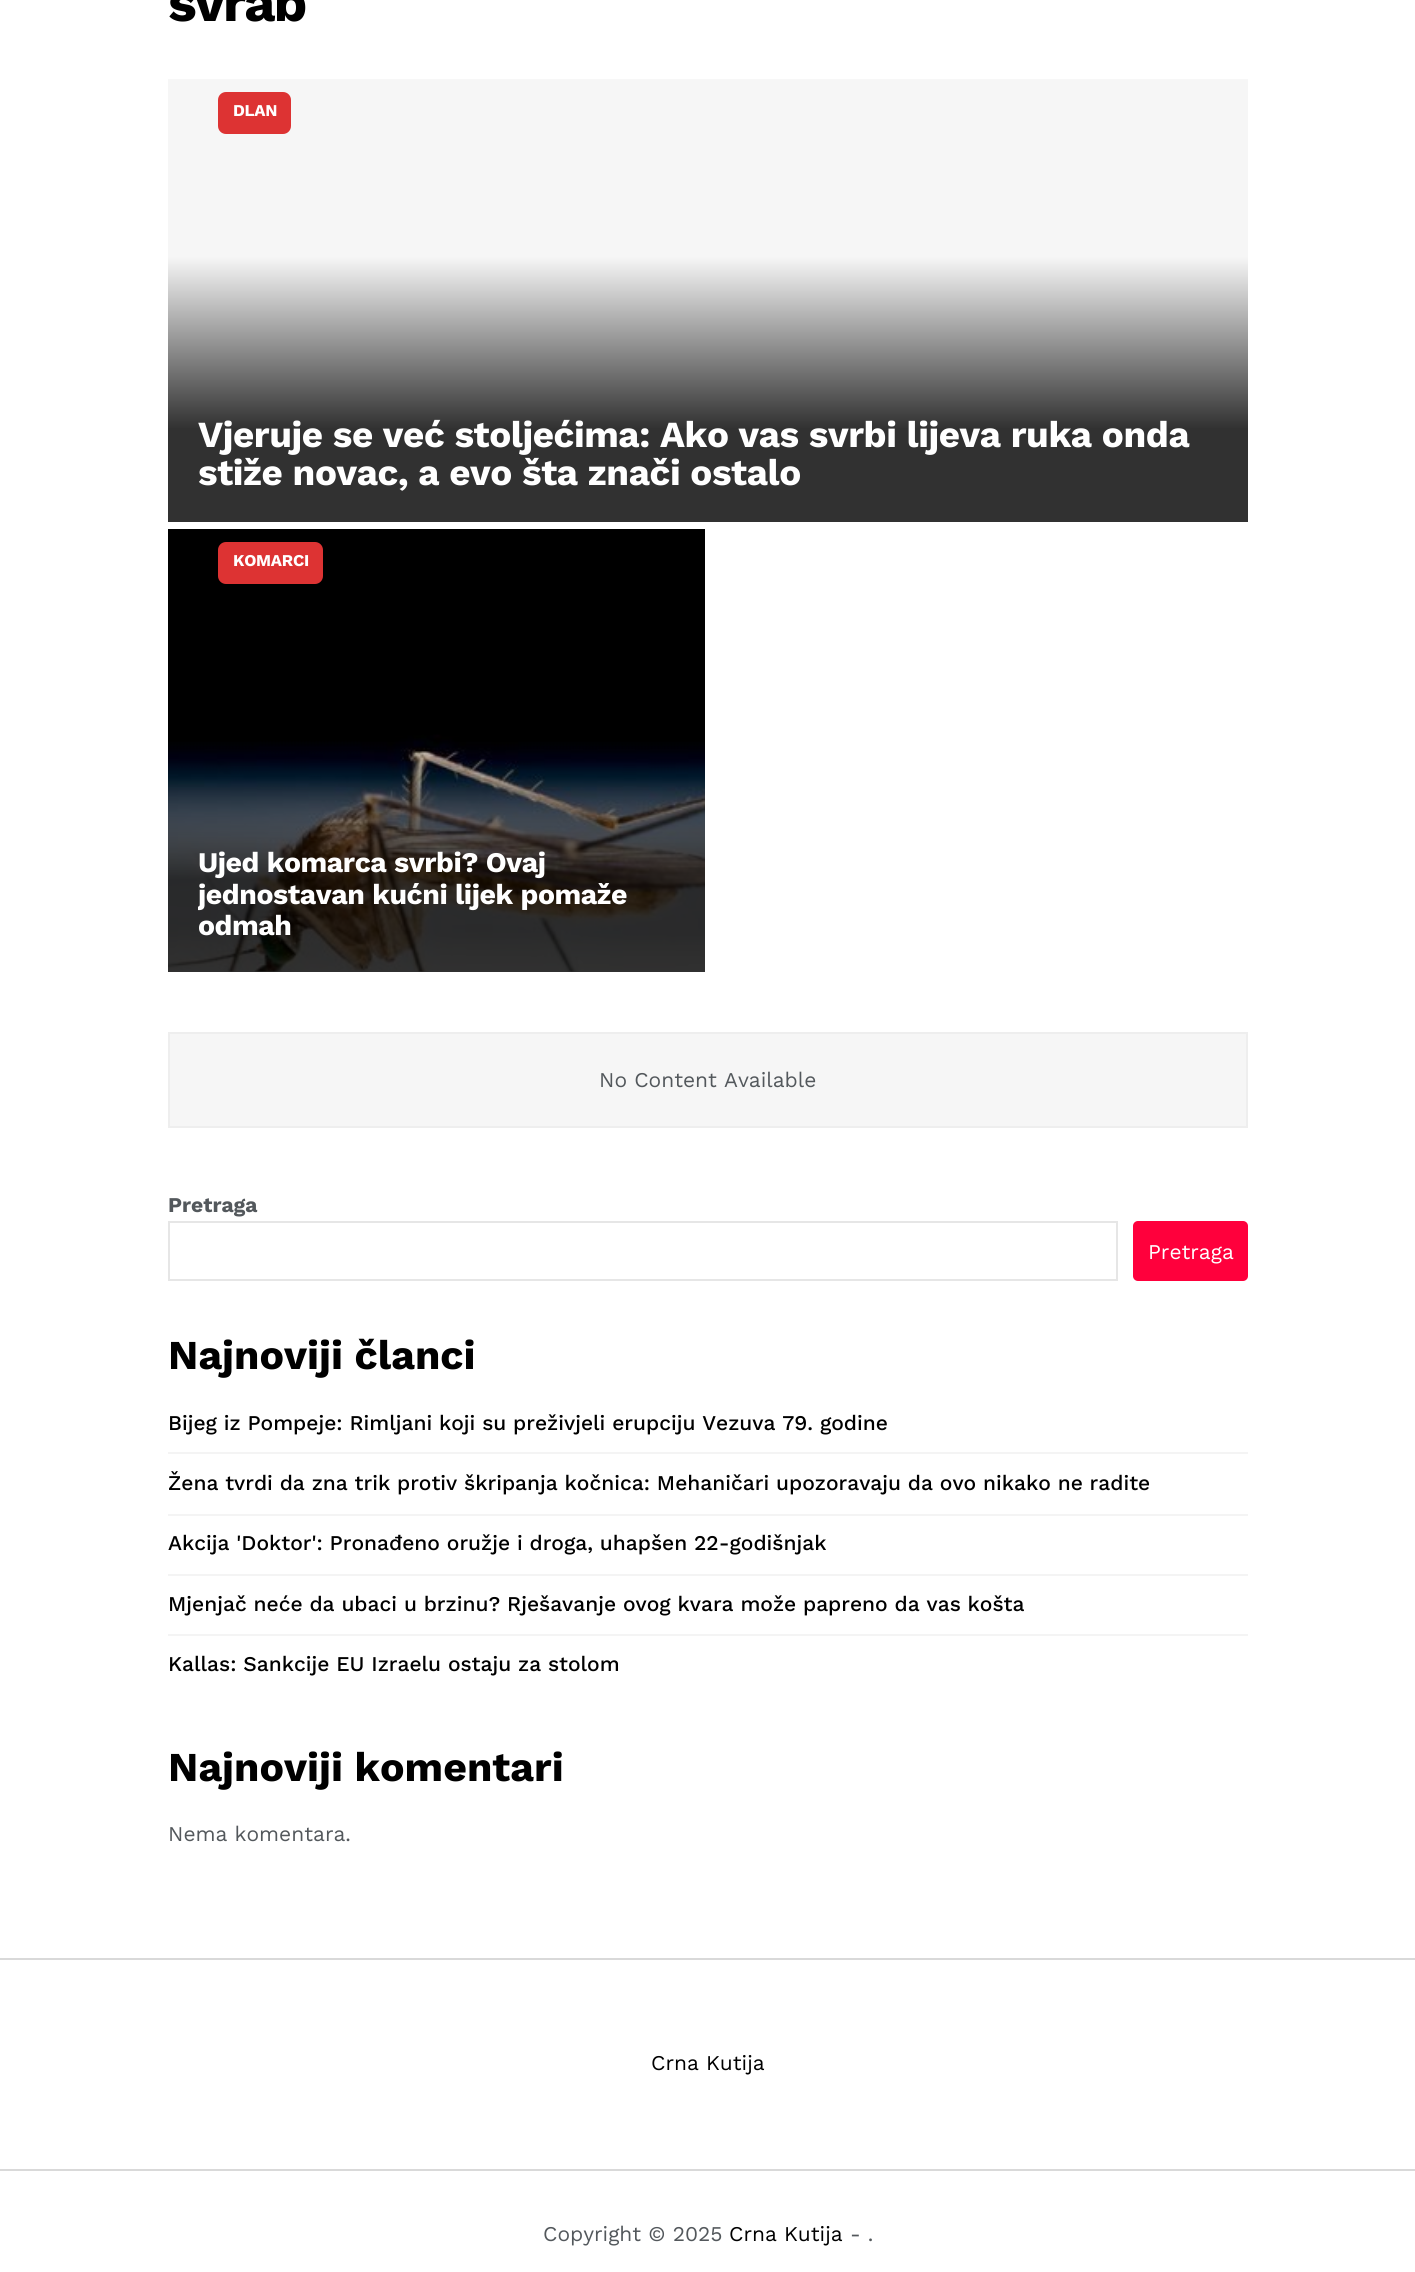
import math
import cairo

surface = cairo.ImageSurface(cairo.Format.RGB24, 1415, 2272)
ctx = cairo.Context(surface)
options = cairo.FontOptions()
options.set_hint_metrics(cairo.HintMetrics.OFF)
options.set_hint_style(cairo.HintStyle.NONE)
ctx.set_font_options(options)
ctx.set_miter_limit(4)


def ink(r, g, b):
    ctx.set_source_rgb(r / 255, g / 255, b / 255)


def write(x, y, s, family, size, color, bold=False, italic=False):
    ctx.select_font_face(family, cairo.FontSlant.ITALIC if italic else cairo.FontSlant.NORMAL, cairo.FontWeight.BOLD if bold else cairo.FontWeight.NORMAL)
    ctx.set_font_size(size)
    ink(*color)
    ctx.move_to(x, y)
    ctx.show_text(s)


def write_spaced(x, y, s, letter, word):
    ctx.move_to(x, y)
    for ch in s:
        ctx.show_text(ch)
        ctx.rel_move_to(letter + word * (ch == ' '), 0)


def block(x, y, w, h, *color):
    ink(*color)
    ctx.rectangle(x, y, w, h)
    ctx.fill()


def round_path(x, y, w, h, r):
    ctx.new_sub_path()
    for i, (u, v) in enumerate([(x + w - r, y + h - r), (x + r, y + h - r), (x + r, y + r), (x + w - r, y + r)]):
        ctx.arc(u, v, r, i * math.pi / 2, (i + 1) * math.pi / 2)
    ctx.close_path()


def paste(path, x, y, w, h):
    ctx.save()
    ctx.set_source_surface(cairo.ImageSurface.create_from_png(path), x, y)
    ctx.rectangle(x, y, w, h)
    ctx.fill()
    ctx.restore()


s1 = dict(family="Work Sans", size=21, color=(83, 88, 92))
s2 = dict(family="Work Sans", size=21, color=(83, 88, 92), bold=True)
s3 = dict(family="Work Sans", size=21, color=(255, 255, 255))
s4 = dict(family="Work Sans", size=41, color=(0, 0, 0), bold=True)
s5 = dict(family="Work Sans Medium", size=21, color=(0, 0, 0))
s6 = dict(family="Work Sans", size=21, color=(0, 0, 0))

ink(255, 255, 255)
ctx.paint()
ctx.select_font_face("Work Sans", cairo.FontSlant.NORMAL, cairo.FontWeight.BOLD)
ctx.set_font_size(54)
ink(0, 0, 0)
write_spaced(168, 21, "svrab", -2, 0)
block(168, 80, 1080, 177, 246, 246, 246)
block(168, 79, 1080, 1, 247, 247, 247)
gradient = cairo.LinearGradient(708, 256, 708, 522)
gradient.add_color_stop_rgba(0, 0.969, 0.969, 0.969, 1)
gradient.add_color_stop_rgba(0.65, 0.192, 0.192, 0.192, 1)
gradient.add_color_stop_rgba(1, 0.192, 0.192, 0.192, 1)
ctx.set_source(gradient)
ctx.rectangle(168, 257, 1080, 265)
ctx.fill()
ink(221, 51, 51)
round_path(218, 92, 73, 42, 8)
ctx.fill()
ctx.set_font_size(16.5)
ink(255, 255, 255)
write_spaced(233, 116, "DLAN", -0.25, 0)
ctx.set_font_size(36.75)
write_spaced(198, 447, "Vjeruje se već stoljećima: Ako vas svrbi lijeva ruka onda", -0.42, 0)
write_spaced(198, 485, "stiže novac, a evo šta znači ostalo", -0.42, 0)
block(168, 971, 537, 1, 246, 246, 246)
paste("pic1.png", 168, 529, 537, 443)
gradient = cairo.LinearGradient(437, 707, 437, 972)
gradient.add_color_stop_rgba(0, 0, 0, 0, 0)
gradient.add_color_stop_rgba(0.65, 0, 0, 0, 0.8)
gradient.add_color_stop_rgba(1, 0, 0, 0, 0.8)
ctx.set_source(gradient)
ctx.rectangle(168, 748, 537, 224)
ctx.fill()
ink(221, 51, 51)
round_path(218, 542, 105, 42, 8)
ctx.fill()
ctx.set_font_size(16.5)
ink(255, 255, 255)
write_spaced(233, 566, "KOMARCI", -0.25, 0)
ctx.set_font_size(28.4)
write_spaced(198, 872, "Ujed komarca svrbi? Ovaj", -0.42, 0)
ctx.save()
ctx.rectangle(198, 848, 477, 94)
ctx.clip()
write_spaced(198, 904, "jednostavan kućni lijek pomaže", -0.42, 0)
ctx.restore()
write_spaced(198, 935, "odmah", -0.42, 0)
ink(246, 246, 246)
ctx.rectangle(169, 1033, 1078, 94)
ctx.fill_preserve()
ink(238, 238, 238)
ctx.stroke()
write(599, 1087, "No Content Available", **s1)
write(168, 1212, "Pretraga", **s2)
ctx.rectangle(169, 1222, 948, 58)
ink(230, 230, 230)
ctx.stroke()
ink(255, 0, 60)
round_path(1133, 1221, 115, 60, 5)
ctx.fill()
write(1148, 1259, "Pretraga", **s3)
write(168, 1369, "Najnoviji članci", **s4)
write(168, 1430, "Bijeg iz Pompeje: Rimljani koji su preživjeli erupciju Vezuva 79. godine", **s5)
block(168, 1452, 1080, 2, 244, 244, 244)
write(168, 1490, "Žena tvrdi da zna trik protiv škripanja kočnica: Mehaničari upozoravaju da ovo nikako ne radite", **s5)
block(168, 1514, 1080, 2, 244, 244, 244)
write(168, 1550, "Akcija 'Doktor': Pronađeno oružje i droga, uhapšen 22-godišnjak", **s5)
block(168, 1574, 1080, 2, 244, 244, 244)
write(168, 1611, "Mjenjač neće da ubaci u brzinu? Rješavanje ovog kvara može papreno da vas košta", **s5)
block(168, 1634, 1080, 2, 244, 244, 244)
write(168, 1671, "Kallas: Sankcije EU Izraelu ostaju za stolom", **s5)
write(168, 1781, "Najnoviji komentari", **s4)
write(168, 1841, "Nema komentara.", **s1)
block(0, 1958, 1415, 2, 217, 217, 217)
write(651, 2070, "Crna Kutija", **s6)
block(0, 2169, 1415, 2, 217, 217, 217)
write(543, 2241, "Copyright © 2025", **s1)
write(729, 2241, "Crna Kutija", **s6)
write(850, 2241, "- .", **s1)
surface.write_to_png("screenshot.png")
